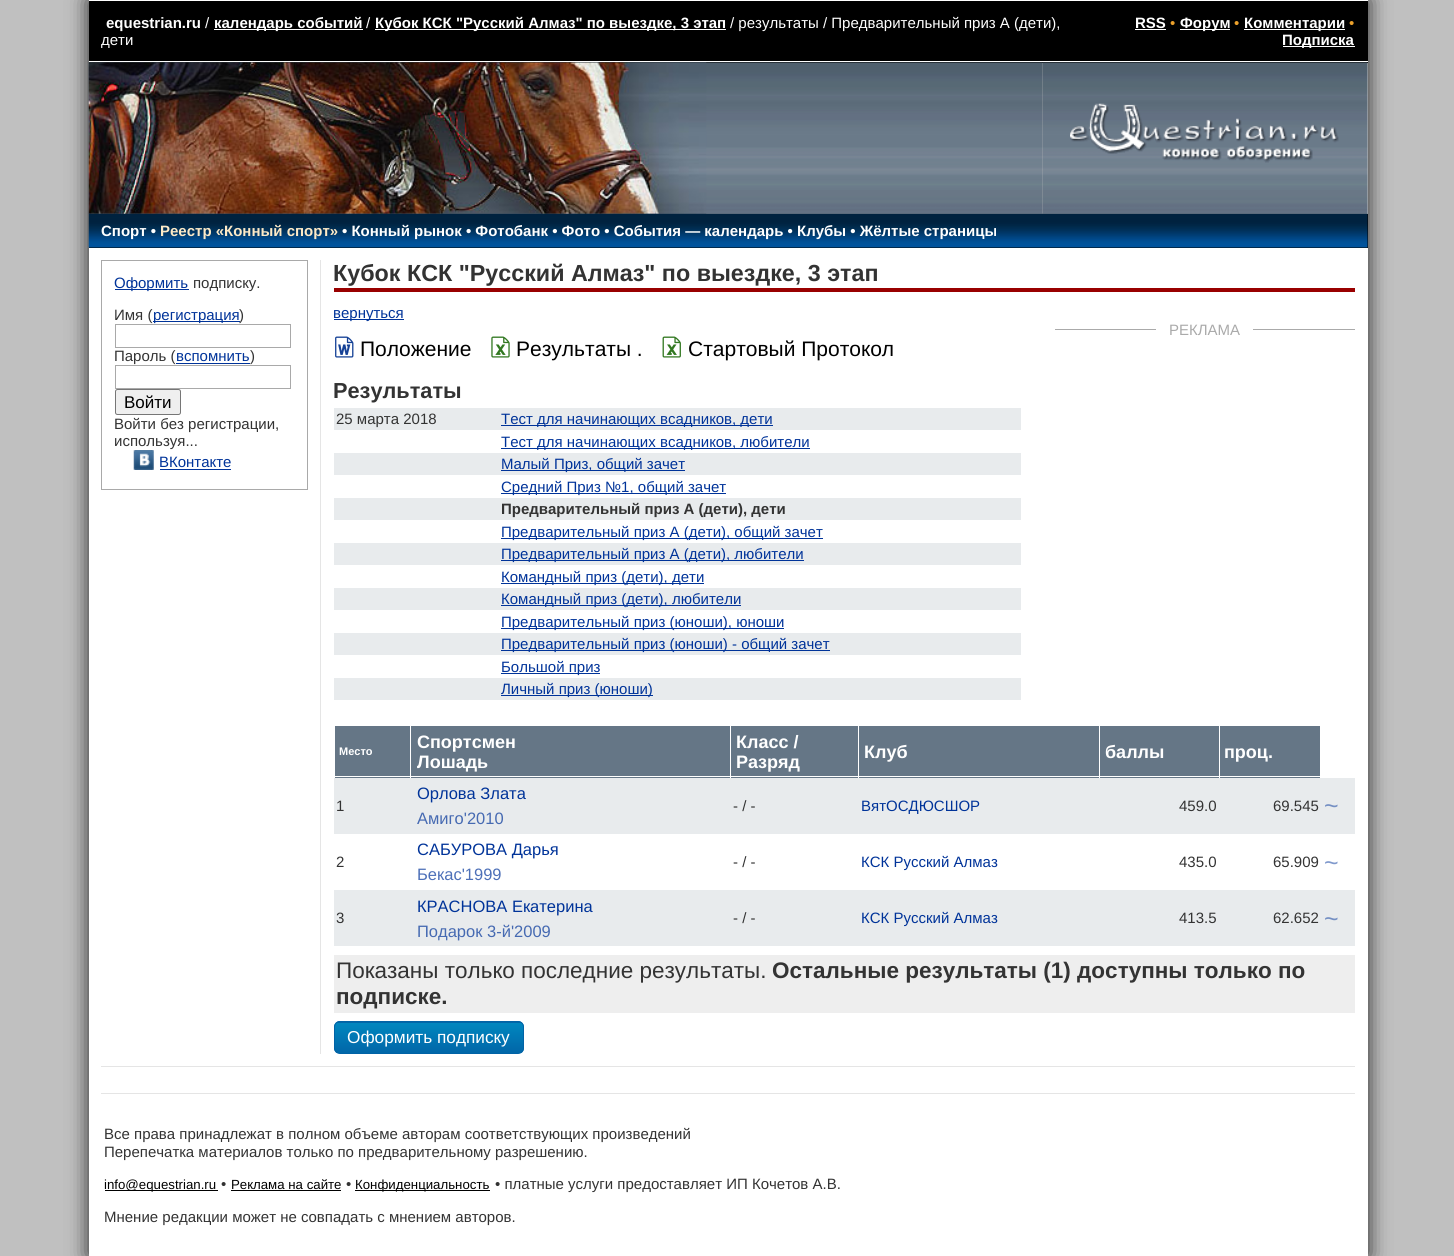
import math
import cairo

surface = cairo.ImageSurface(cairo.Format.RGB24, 1454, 1256)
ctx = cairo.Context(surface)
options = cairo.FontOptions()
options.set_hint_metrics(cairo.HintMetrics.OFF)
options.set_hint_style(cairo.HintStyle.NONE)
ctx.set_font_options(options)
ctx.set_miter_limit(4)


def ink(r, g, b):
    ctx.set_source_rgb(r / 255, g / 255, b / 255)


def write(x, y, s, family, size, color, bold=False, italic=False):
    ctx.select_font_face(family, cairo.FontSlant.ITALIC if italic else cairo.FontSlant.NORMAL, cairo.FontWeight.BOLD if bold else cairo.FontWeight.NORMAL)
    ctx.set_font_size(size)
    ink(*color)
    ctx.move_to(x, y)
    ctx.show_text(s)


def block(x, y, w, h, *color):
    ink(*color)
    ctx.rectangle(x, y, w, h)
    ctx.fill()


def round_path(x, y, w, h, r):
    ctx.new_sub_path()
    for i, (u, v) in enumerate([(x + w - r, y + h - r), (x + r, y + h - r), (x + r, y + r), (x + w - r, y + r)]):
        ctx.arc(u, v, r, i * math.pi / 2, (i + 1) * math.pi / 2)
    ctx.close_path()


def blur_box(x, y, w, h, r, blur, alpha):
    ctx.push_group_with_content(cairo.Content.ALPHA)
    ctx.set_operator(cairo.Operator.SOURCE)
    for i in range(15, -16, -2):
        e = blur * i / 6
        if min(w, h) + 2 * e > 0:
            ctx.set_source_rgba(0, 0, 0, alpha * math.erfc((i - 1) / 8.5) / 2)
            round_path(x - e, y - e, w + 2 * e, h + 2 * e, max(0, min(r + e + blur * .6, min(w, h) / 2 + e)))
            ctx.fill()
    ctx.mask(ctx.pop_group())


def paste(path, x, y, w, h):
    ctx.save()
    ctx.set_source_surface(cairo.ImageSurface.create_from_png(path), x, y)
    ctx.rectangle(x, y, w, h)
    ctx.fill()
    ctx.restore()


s1 = dict(family="Liberation Sans", size=15, color=(255, 255, 255), bold=True)
s2 = dict(family="Liberation Sans", size=15, color=(255, 255, 255))
s3 = dict(family="Liberation Sans", size=15, color=(235, 160, 43))
s4 = dict(family="Liberation Sans", size=15, color=(254, 234, 199), bold=True)
s5 = dict(family="Liberation Sans", size=15, color=(0, 51, 153))
s6 = dict(family="Liberation Sans", size=15, color=(51, 51, 51))
s7 = dict(family="Liberation Sans", size=17, color=(0, 0, 0))
s8 = dict(family="Liberation Sans", size=23.3, color=(51, 51, 51), bold=True)
s9 = dict(family="Liberation Sans", size=15, color=(170, 170, 170))
s10 = dict(family="Liberation Sans", size=21, color=(0, 0, 0))
s11 = dict(family="Liberation Sans", size=21.75, color=(51, 51, 51), bold=True)
s12 = dict(family="Liberation Sans", size=15, color=(51, 51, 51), bold=True)
s13 = dict(family="Liberation Sans", size=11, color=(255, 255, 255), bold=True)
s14 = dict(family="Liberation Sans", size=18, color=(255, 255, 255), bold=True)
s15 = dict(family="Liberation Sans", size=16.5, color=(0, 51, 153))
s16 = dict(family="Liberation Sans", size=16.5, color=(70, 106, 178))
s17 = dict(family="Liberation Sans", size=25, color=(116, 143, 195))
s18 = dict(family="Liberation Sans", size=16.5, color=(77, 112, 184))
s19 = dict(family="Liberation Sans", size=25, color=(128, 153, 204))
s20 = dict(family="Liberation Sans", size=22.5, color=(51, 51, 51))
s21 = dict(family="Liberation Sans", size=22.5, color=(51, 51, 51), bold=True)
s22 = dict(family="Liberation Sans", size=17.25, color=(255, 255, 255))
s23 = dict(family="Liberation Sans", size=13.25, color=(0, 0, 0))

ink(192, 192, 192)
ctx.paint()
ink(33, 33, 33)
blur_box(89, 0, 1279, 1256, 0, 10.5, 1)
block(89, 63, 1279, 151, 192, 192, 192)
block(89, 1, 1279, 62, 0, 0, 0)
block(89, 0, 1279, 1, 255, 255, 255)
block(89, 61, 1279, 1, 255, 255, 255)
write(106, 28, "equestrian.ru", **s1)
write(205, 28, "/", **s2)
block(214, 29, 149, 1, 255, 255, 255)
write(214, 28, "календарь событий", **s1)
write(366, 28, "/", **s2)
block(375, 29, 351, 1, 255, 255, 255)
write(375, 28, "Кубок КСК \"Русский Алмаз\" по выездке, 3 этап", **s1)
write(730, 28, "/ результаты / Предварительный приз А (дети),", **s2)
write(101, 45, "дети", **s2)
write(1135, 28, "RSS", **s1)
block(1135, 29, 31, 1, 255, 255, 255)
write(1170, 28, "•", **s3)
block(1180, 29, 50, 1, 255, 255, 255)
write(1180, 28, "Форум", **s1)
write(1234, 28, "•", **s3)
block(1244, 29, 101, 1, 255, 255, 255)
write(1244, 28, "Комментарии", **s1)
write(1349, 28, "•", **s3)
block(1283, 46, 72, 1, 255, 255, 255)
write(1282, 45, "Подписка", **s1)
paste("pic1.png", 88, 62, 955, 152)
paste("pic2.png", 88, 62, 619, 152)
paste("pic3.png", 1042, 62, 326, 152)
paste("pic4.png", 1070, 103, 269, 60)
block(89, 214, 1279, 34, 0, 0, 0)
paste("pic5.png", 88, 213, 1280, 35)
write(101, 236, "Спорт •", **s1)
write(160, 236, "Реестр «Конный спорт»", **s4)
write(342, 236, "• Конный рынок • Фотобанк • Фото • События — календарь • Клубы • Жёлтые страницы", **s1)
block(89, 248, 1279, 1008, 255, 255, 255)
block(320, 260, 1, 794, 229, 229, 229)
ctx.rectangle(101.5, 260.5, 206, 229)
ink(169, 169, 169)
ctx.set_line_width(1)
ctx.stroke()
block(115, 289, 74, 1, 0, 51, 153)
write(114, 288, "Оформить", **s5)
write(193, 288, "подписку.", **s6)
write(114, 320, "Имя (", **s6)
block(153, 321, 87, 1, 0, 51, 153)
write(153, 320, "регистрация", **s5)
write(239, 320, ")", **s6)
ctx.rectangle(115.5, 324.5, 175, 23)
ink(169, 169, 169)
ctx.stroke()
write(114, 361, "Пароль (", **s6)
write(176, 361, "вспомнить", **s5)
block(176, 363, 74, 1, 0, 51, 153)
write(250, 361, ")", **s6)
ctx.rectangle(115.5, 365.5, 175, 23)
ink(169, 169, 169)
ctx.stroke()
ink(239, 239, 239)
round_path(115.5, 389.5, 65, 25, 2)
ctx.fill_preserve()
ink(118, 118, 118)
ctx.stroke()
write(124, 408, "Войти", **s7)
write(114, 429, "Войти без регистрации,", **s6)
write(114, 446, "используя...", **s6)
paste("pic6.png", 133, 450, 21, 20)
write(159, 467, "ВКонтакте", **s5)
block(160, 469, 71, 1, 0, 51, 153)
block(334, 288, 1021, 4, 153, 0, 0)
write(333, 281, "Кубок КСК \"Русский Алмаз\" по выездке, 3 этап", **s8)
block(334, 319, 70, 1, 0, 51, 153)
write(333, 318, "вернуться", **s5)
block(1055, 329, 300, 1, 170, 170, 170)
block(1156, 329, 97, 1, 255, 255, 255)
write(1169, 335, "РЕКЛАМА", **s9)
paste("pic7.png", 335, 336, 19, 22)
write(360, 356, "Положение", **s10)
paste("pic8.png", 491, 336, 19, 22)
write(516, 356, "Результаты .", **s10)
paste("pic9.png", 662, 336, 19, 22)
write(688, 356, "Стартовый Протокол", **s10)
write(333, 398, "Результаты", **s11)
block(334, 408, 687, 22, 232, 235, 237)
write(336, 424, "25 марта 2018", **s6)
block(501, 425, 272, 1, 0, 51, 153)
write(501, 424, "Тест для начинающих всадников, дети", **s5)
block(501, 448, 309, 1, 0, 51, 153)
write(501, 447, "Тест для начинающих всадников, любители", **s5)
block(334, 453, 687, 22, 232, 235, 237)
block(501, 470, 184, 1, 0, 51, 153)
write(501, 469, "Малый Приз, общий зачет", **s5)
block(501, 493, 225, 1, 0, 51, 153)
write(501, 492, "Средний Приз №1, общий зачет", **s5)
block(334, 498, 687, 22, 232, 235, 237)
write(501, 514, "Предварительный приз А (дети), дети", **s12)
block(501, 538, 322, 1, 0, 51, 153)
write(501, 537, "Предварительный приз А (дети), общий зачет", **s5)
block(334, 543, 687, 22, 232, 235, 237)
block(501, 560, 303, 1, 0, 51, 153)
write(501, 559, "Предварительный приз А (дети), любители", **s5)
block(501, 583, 203, 1, 0, 51, 153)
write(501, 582, "Командный приз (дети), дети", **s5)
block(334, 588, 687, 22, 232, 235, 237)
block(501, 605, 240, 1, 0, 51, 153)
write(501, 604, "Командный приз (дети), любители", **s5)
block(501, 628, 283, 1, 0, 51, 153)
write(501, 627, "Предварительный приз (юноши), юноши", **s5)
block(334, 633, 687, 22, 232, 235, 237)
block(501, 650, 329, 1, 0, 51, 153)
write(501, 649, "Предварительный приз (юноши) - общий зачет", **s5)
block(501, 673, 99, 1, 0, 51, 153)
write(501, 672, "Большой приз", **s5)
block(334, 678, 687, 22, 232, 235, 237)
block(501, 695, 152, 1, 0, 51, 153)
write(501, 694, "Личный приз (юноши)", **s5)
block(335, 726, 75, 52, 101, 118, 134)
write(339, 755, "Место", **s13)
block(411, 726, 319, 52, 101, 118, 134)
write(417, 748, "Спортсмен", **s14)
write(417, 768, "Лошадь", **s14)
block(731, 726, 127, 52, 101, 118, 134)
write(736, 748, "Класс /", **s14)
write(736, 768, "Разряд", **s14)
block(859, 726, 240, 52, 101, 118, 134)
write(864, 758, "Клуб", **s14)
block(1100, 726, 119, 52, 101, 118, 134)
write(1105, 758, "баллы", **s14)
block(1220, 726, 100, 52, 101, 118, 134)
block(334, 776, 987, 1, 255, 255, 255)
write(1224, 758, "проц.", **s14)
block(334, 778, 1021, 56, 232, 235, 237)
write(336, 811, "1", **s6)
write(417, 799, "Орлова Злата", **s15)
write(417, 824, "Амиго'2010", **s16)
write(733, 811, "- / -", **s6)
write(861, 811, "ВятОСДЮСШОР", **s5)
write(1179, 811, "459.0", **s6)
write(1273, 811, "69.545", **s6)
write(1324, 814, "~", **s17)
write(336, 867, "2", **s6)
write(417, 855, "САБУРОВА Дарья", **s15)
write(417, 880, "Бекас'1999", **s18)
write(733, 867, "- / -", **s6)
write(861, 867, "КСК Русский Алмаз", **s5)
write(1179, 867, "435.0", **s6)
write(1273, 867, "65.909", **s6)
write(1324, 871, "~", **s19)
block(334, 890, 1021, 56, 232, 235, 237)
write(336, 923, "3", **s6)
write(417, 912, "КРАСНОВА Екатерина", **s15)
write(417, 937, "Подарок 3-й'2009", **s16)
write(733, 923, "- / -", **s6)
write(861, 923, "КСК Русский Алмаз", **s5)
write(1179, 923, "413.5", **s6)
write(1273, 923, "62.652", **s6)
write(1324, 927, "~", **s17)
block(334, 955, 1021, 58, 238, 238, 238)
write(336, 978, "Показаны только последние результаты.", **s20)
write(772, 978, "Остальные результаты (1) доступны только по", **s21)
write(336, 1004, "подписке.", **s21)
ctx.save()
round_path(334, 1021, 190, 33, 6)
ctx.clip()
gradient = cairo.LinearGradient(429, 993, 429, 1023)
gradient.add_color_stop_rgba(0, 0, 0.529, 0.749, 1)
gradient.add_color_stop_rgba(1, 0.004, 0.4, 0.659, 1)
ctx.set_source(gradient)
ctx.rectangle(334, 1021, 190, 2)
ctx.fill()
gradient = cairo.LinearGradient(429, 1023, 429, 1053)
gradient.add_color_stop_rgba(0, 0, 0.529, 0.749, 1)
gradient.add_color_stop_rgba(1, 0.004, 0.4, 0.659, 1)
ctx.set_source(gradient)
ctx.rectangle(334, 1023, 190, 30)
ctx.fill()
ctx.restore()
round_path(334.5, 1021.5, 189, 32, 5.5)
ink(1, 99, 166)
ctx.stroke()
write(347, 1043, "Оформить подписку", **s22)
block(101, 1066, 1254, 1, 229, 229, 229)
block(101, 1093, 1254, 1, 229, 229, 229)
write(104, 1139, "Все права принадлежат в полном объеме авторам соответствующих произведений", **s6)
write(104, 1157, "Перепечатка материалов только по предварительному разрешению.", **s6)
block(105, 1190, 113, 1, 0, 0, 0)
write(104, 1189, "info@equestrian.ru", **s23)
write(221, 1189, "•", **s6)
write(231, 1189, "Реклама на сайте", **s23)
block(231, 1190, 110, 1, 0, 0, 0)
write(346, 1189, "•", **s6)
block(355, 1190, 135, 1, 0, 0, 0)
write(355, 1189, "Конфиденциальность", **s23)
write(495, 1189, "• платные услуги предоставляет ИП Кочетов А.В.", **s6)
write(104, 1222, "Мнение редакции может не совпадать с мнением авторов.", **s6)
surface.write_to_png("screenshot.png")
